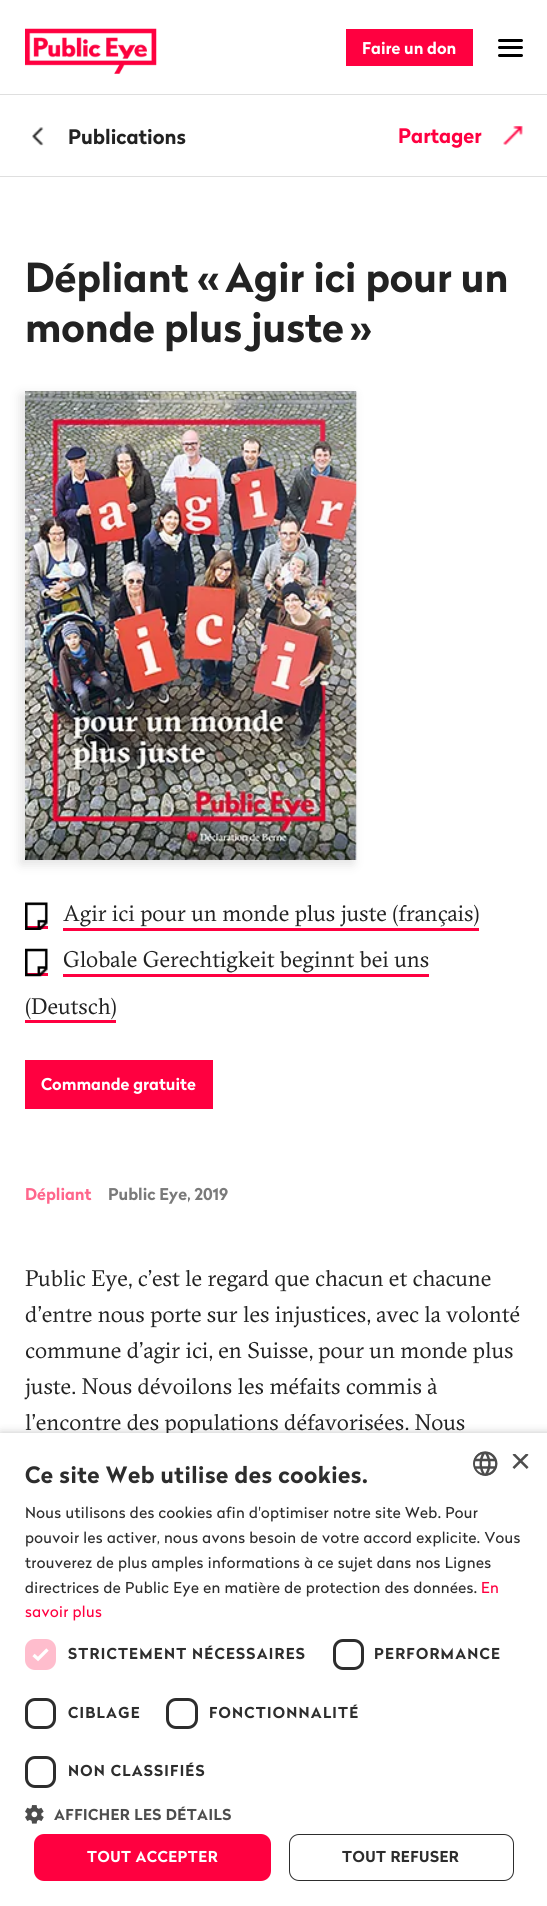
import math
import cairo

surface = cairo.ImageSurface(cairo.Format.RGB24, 547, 1906)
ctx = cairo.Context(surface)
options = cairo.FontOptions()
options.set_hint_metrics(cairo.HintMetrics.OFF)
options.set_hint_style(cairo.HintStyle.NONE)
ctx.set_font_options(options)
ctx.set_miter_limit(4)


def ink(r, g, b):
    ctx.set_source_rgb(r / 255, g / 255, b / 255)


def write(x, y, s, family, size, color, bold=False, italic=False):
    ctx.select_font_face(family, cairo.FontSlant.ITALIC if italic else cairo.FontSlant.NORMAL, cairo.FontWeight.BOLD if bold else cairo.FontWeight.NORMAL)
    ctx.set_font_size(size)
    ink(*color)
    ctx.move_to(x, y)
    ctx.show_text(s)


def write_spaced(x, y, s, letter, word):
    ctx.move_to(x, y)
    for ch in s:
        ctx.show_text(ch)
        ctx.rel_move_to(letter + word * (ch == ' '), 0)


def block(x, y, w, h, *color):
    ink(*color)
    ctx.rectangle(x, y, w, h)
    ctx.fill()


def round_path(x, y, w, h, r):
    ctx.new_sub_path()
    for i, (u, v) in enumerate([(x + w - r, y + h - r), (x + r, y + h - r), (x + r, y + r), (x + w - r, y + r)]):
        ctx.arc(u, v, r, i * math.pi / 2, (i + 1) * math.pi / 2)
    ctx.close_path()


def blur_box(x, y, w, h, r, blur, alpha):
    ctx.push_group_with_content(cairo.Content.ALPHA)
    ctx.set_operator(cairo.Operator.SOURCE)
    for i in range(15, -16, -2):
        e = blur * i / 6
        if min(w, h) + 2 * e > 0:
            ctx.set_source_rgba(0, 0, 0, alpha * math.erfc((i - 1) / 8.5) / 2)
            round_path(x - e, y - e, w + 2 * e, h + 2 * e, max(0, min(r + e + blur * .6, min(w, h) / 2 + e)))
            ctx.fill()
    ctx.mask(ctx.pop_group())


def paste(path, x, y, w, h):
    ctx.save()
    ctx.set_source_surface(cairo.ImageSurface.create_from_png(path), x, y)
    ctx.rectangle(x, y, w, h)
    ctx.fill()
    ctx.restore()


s1 = dict(family="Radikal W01", size=16.25, color=(255, 255, 255), bold=True)
s2 = dict(family="Radikal W01", size=20, color=(34, 34, 34), bold=True)
s3 = dict(family="Radikal W01", size=20, color=(255, 0, 64), bold=True)
s4 = dict(family="Radikal W01", size=40, color=(34, 34, 34), bold=True)
s5 = dict(family="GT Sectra", size=22.5, color=(34, 34, 34))
s6 = dict(family="Radikal W01", size=16.25, color=(255, 102, 140), bold=True)
s7 = dict(family="Radikal W01", size=16.25, color=(122, 122, 122), bold=True)
s8 = dict(family="Liberation Sans", size=36, color=(77, 77, 77))

ink(255, 255, 255)
ctx.paint()
block(0, 94, 547, 1, 223, 223, 223)
paste("pic1.png", 25, 28, 132, 46)
block(346, 29, 127, 37, 255, 0, 64)
write(362, 54, "Faire un don", **s1)
ink(0, 0, 0)
round_path(498, 39, 25, 3, 1.5)
ctx.fill()
round_path(498, 46, 25, 3, 1.5)
ctx.fill()
round_path(498, 54, 25, 3, 1.5)
ctx.fill()
block(0, 176, 547, 1, 223, 223, 223)
paste("pic2.png", 32, 127, 12, 19)
write(68, 144, "Publications", **s2)
write(398, 143, "Partager", **s3)
paste("pic3.png", 503, 126, 20, 19)
write(25, 292, "Dépliant «", **s4)
write(225, 292, "Agir ici pour un", **s4)
write(25, 342, "monde plus juste", **s4)
write(350, 342, "»", **s4)
block(25, 391, 331, 469, 244, 245, 246)
paste("pic4.png", 25, 391, 332, 469)
ctx.set_source_rgba(1, 1, 1, 0.2)
ctx.rectangle(25, 391, 331, 3)
ctx.fill()
ctx.set_source_rgba(0, 0, 0, 0.2)
ctx.rectangle(25, 391, 331, 1)
ctx.fill()
ctx.save()
ctx.set_fill_rule(cairo.FillRule.EVEN_ODD)
ctx.new_path()
ctx.move_to(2, 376)
ctx.line_to(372, 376)
ctx.line_to(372, 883)
ctx.line_to(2, 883)
ctx.close_path()
ctx.move_to(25, 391)
ctx.line_to(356, 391)
ctx.line_to(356, 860)
ctx.line_to(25, 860)
ctx.close_path()
ctx.clip()
ink(0, 0, 0)
blur_box(21, 395, 332, 469, 0, 6, 0.12)
ctx.restore()
gradient = cairo.LinearGradient(412, 470, -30, 782)
gradient.add_color_stop_rgba(0, 1, 1, 1, 0.12)
gradient.add_color_stop_rgba(0.5, 1, 1, 1, 0)
gradient.add_color_stop_rgba(1, 1, 1, 1, 0)
ctx.set_source(gradient)
ctx.rectangle(85, 391, 271, 384)
ctx.fill()
block(25, 926, 23, 3, 255, 0, 64)
block(63, 928, 416, 3, 255, 0, 64)
paste("pic5.png", 25, 902, 23, 28)
write(63, 921, "Agir ici pour un monde plus juste (français)", **s5)
block(25, 973, 23, 3, 255, 0, 64)
block(63, 974, 366, 3, 255, 0, 64)
block(25, 1020, 91, 3, 255, 0, 64)
paste("pic6.png", 25, 948, 23, 29)
write(63, 967, "Globale Gerechtigkeit beginnt bei uns", **s5)
write(25, 1014, "(Deutsch)", **s5)
block(25, 1060, 188, 49, 255, 0, 64)
write(41, 1090, "Commande gratuite", **s1)
write(25, 1200, "Dépliant", **s6)
write(108, 1200, "Public Eye, 2019", **s7)
write(25, 1286, "Public Eye, c'est le regard que chacun et chacune", **s5)
write(25, 1322, "d'entre nous porte sur les injustices, avec la volonté", **s5)
write(25, 1358, "commune d'agir ici, en Suisse, pour un monde plus", **s5)
write(25, 1394, "juste. Nous dévoilons les méfaits commis à", **s5)
write(25, 1430, "l'encontre des populations défavorisées. Nous", **s5)
ink(0, 0, 0)
blur_box(1, 1435, 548, 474, 0, 5, 0.35)
block(0, 1433, 547, 473, 255, 255, 255)
paste("pic7.png", 473, 1451, 25, 25)
ctx.save()
ctx.rectangle(510, 1454, 19, 19)
ctx.clip()
write(510, 1473, "×", **s8)
ctx.restore()
ctx.select_font_face("Radikal W01", cairo.FontSlant.NORMAL, cairo.FontWeight.BOLD)
ink(45, 45, 45)
write_spaced(25, 1483, "Ce site Web utilise des cookies.", 0.5, 0)
ctx.select_font_face("Radikal W01")
ctx.set_font_size(15)
write_spaced(25, 1518, "Nous utilisons des cookies afin d'optimiser notre site Web. Pour", 0.38, 0)
write_spaced(25, 1543, "pouvoir les activer, nous avons besoin de votre accord explicite. Vous", 0.38, 0)
write_spaced(25, 1568, "trouverez de plus amples informations à ce sujet dans nos Lignes", 0.38, 0)
write_spaced(25, 1593, "directrices de Public Eye en matière de protection des données.", 0.38, 0)
ink(255, 0, 64)
write_spaced(481, 1593, "En", 0.38, 0)
write_spaced(25, 1617, "savoir plus", 0.38, 0)
ink(255, 189, 205)
round_path(25, 1639, 31, 31, 10)
ctx.fill()
ctx.new_path()
ctx.move_to(33.5, 1655)
ctx.line_to(38, 1659)
ctx.line_to(47.5, 1649.5)
ink(255, 255, 255)
ctx.set_line_width(3.3)
ctx.stroke()
ctx.select_font_face("Radikal W01", cairo.FontSlant.NORMAL, cairo.FontWeight.BOLD)
ink(45, 45, 45)
write_spaced(68, 1659, "STRICTEMENT NÉCESSAIRES", 1.25, 0)
round_path(334.5, 1640.5, 28, 28, 8.5)
ctx.set_line_width(3)
ctx.stroke()
write_spaced(374, 1659, "PERFORMANCE", 1.25, 0)
round_path(26.5, 1699.5, 28, 28, 8.5)
ctx.stroke()
write_spaced(68, 1718, "CIBLAGE", 1.25, 0)
round_path(167.5, 1699.5, 29, 28, 8.5)
ctx.stroke()
write_spaced(209, 1718, "FONCTIONNALITÉ", 1.25, 0)
round_path(26.5, 1757.5, 28, 29, 8.5)
ctx.stroke()
write_spaced(68, 1776, "NON CLASSIFIÉS", 1.25, 0)
paste("pic8.png", 25, 1805, 19, 19)
ink(77, 77, 77)
write_spaced(54, 1820, "AFFICHER LES DÉTAILS", 0.5, 0)
ink(255, 0, 64)
round_path(34, 1834, 237, 47, 10)
ctx.fill()
ink(255, 255, 255)
write_spaced(87, 1862, "TOUT ACCEPTER", 0.5, 0)
round_path(289.5, 1834.5, 224, 46, 9.5)
ink(45, 45, 45)
ctx.set_line_width(1)
ctx.stroke()
write_spaced(342, 1862, "TOUT REFUSER", 0.5, 0)
surface.write_to_png("screenshot.png")
